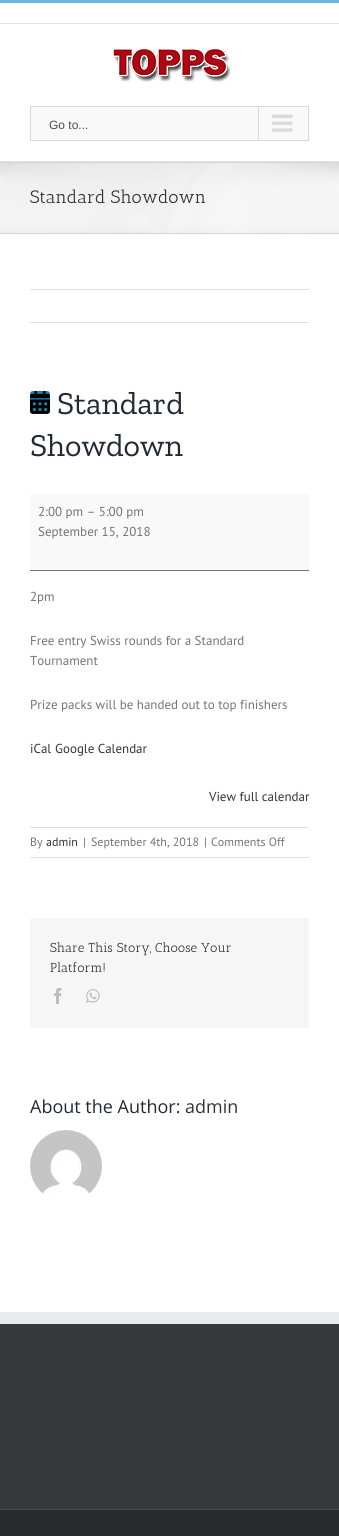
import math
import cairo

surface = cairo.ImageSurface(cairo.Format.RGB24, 339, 1536)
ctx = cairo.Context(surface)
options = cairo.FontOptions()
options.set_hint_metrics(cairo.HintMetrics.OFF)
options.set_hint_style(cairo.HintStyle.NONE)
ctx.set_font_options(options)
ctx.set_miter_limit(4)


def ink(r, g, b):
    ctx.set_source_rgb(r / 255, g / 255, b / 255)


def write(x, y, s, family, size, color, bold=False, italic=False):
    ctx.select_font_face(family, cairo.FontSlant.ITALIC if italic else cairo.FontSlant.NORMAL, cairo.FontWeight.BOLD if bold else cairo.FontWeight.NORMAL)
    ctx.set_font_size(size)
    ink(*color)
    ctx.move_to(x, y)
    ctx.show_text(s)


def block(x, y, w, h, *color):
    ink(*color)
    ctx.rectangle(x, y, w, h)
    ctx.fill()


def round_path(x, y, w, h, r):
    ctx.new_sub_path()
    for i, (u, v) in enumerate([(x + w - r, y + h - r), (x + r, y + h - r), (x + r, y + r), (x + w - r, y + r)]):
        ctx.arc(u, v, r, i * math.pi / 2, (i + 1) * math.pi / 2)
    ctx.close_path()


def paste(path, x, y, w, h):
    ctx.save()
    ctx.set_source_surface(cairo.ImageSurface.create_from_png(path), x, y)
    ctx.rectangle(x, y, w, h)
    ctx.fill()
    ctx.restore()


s1 = dict(family="Liberation Sans", size=12, color=(74, 78, 87))
s2 = dict(family="Antic Slab", size=18, color=(51, 51, 51))
s3 = dict(family="Zilla Slab", size=32, color=(33, 41, 52))
s4 = dict(family="PT Sans", size=13, color=(116, 116, 116))
s5 = dict(family="PT Sans", size=13, color=(51, 51, 51))
s6 = dict(family="PT Sans", size=12, color=(116, 116, 116))
s7 = dict(family="PT Sans", size=12, color=(51, 51, 51))
s8 = dict(family="Antic Slab", size=13, color=(51, 51, 51))
s9 = dict(family="Open Sans", size=18, color=(33, 41, 52))
s10 = dict(family="Open Sans", size=18, color=(51, 51, 51))

ink(255, 255, 255)
ctx.paint()
block(0, 0, 339, 3, 103, 183, 225)
block(0, 23, 339, 1, 229, 229, 229)
block(0, 161, 339, 1, 229, 229, 229)
paste("pic1.png", 113, 49, 118, 33)
ink(249, 249, 249)
ctx.rectangle(30.5, 106.5, 278, 34)
ctx.fill_preserve()
ink(218, 218, 218)
ctx.set_line_width(1)
ctx.stroke()
write(49, 129, "Go to...", **s1)
block(258, 107, 1, 33, 218, 218, 218)
paste("pic2.png", 272, 114, 21, 18)
block(0, 163, 339, 70, 246, 246, 246)
paste("pic3.png", 0, 163, 339, 70)
block(0, 162, 339, 1, 210, 211, 212)
block(0, 233, 339, 1, 210, 211, 212)
write(30, 203, "Standard Showdown", **s2)
block(30, 289, 279, 1, 224, 222, 222)
block(30, 322, 279, 1, 224, 222, 222)
ink(26, 128, 182)
round_path(30, 391, 20, 23, 3)
ctx.fill()
paste("pic4.png", 30, 391, 20, 23)
write(57, 414, "Standard", **s3)
write(30, 456, "Showdown", **s3)
block(30, 494, 279, 76, 249, 249, 249)
block(30, 570, 279, 1, 116, 116, 116)
write(38, 516, "2:00 pm – 5:00 pm", **s4)
write(38, 536, "September 15, 2018", **s4)
write(30, 601, "2pm", **s4)
write(30, 645, "Free entry Swiss rounds for a Standard", **s4)
write(30, 665, "Tournament", **s4)
write(30, 709, "Prize packs will be handed out to top finishers", **s4)
write(30, 753, "iCal", **s5)
write(55, 753, "Google Calendar", **s5)
write(209, 801, "View full calendar", **s5)
block(30, 827, 279, 1, 224, 222, 222)
block(30, 857, 279, 1, 224, 222, 222)
write(30, 846, "By", **s6)
write(46, 846, "admin", **s7)
write(83, 846, "|", **s6)
write(91, 846, "September 4th, 2018", **s6)
write(204, 846, "|", **s6)
write(211, 846, "Comments Off", **s6)
block(30, 918, 279, 110, 246, 246, 246)
write(50, 952, "Share This Story, Choose Your", **s8)
write(50, 972, "Platform!", **s8)
paste("pic5.png", 54, 988, 8, 16)
paste("pic6.png", 86, 989, 14, 14)
write(30, 1113, "About the Author:", **s9)
write(185, 1113, "admin", **s10)
paste("pic7.png", 30, 1130, 72, 64)
block(0, 1324, 339, 185, 54, 56, 57)
block(0, 1312, 339, 12, 233, 234, 238)
block(0, 1510, 339, 26, 40, 42, 43)
block(0, 1509, 339, 1, 75, 76, 77)
surface.write_to_png("screenshot.png")
